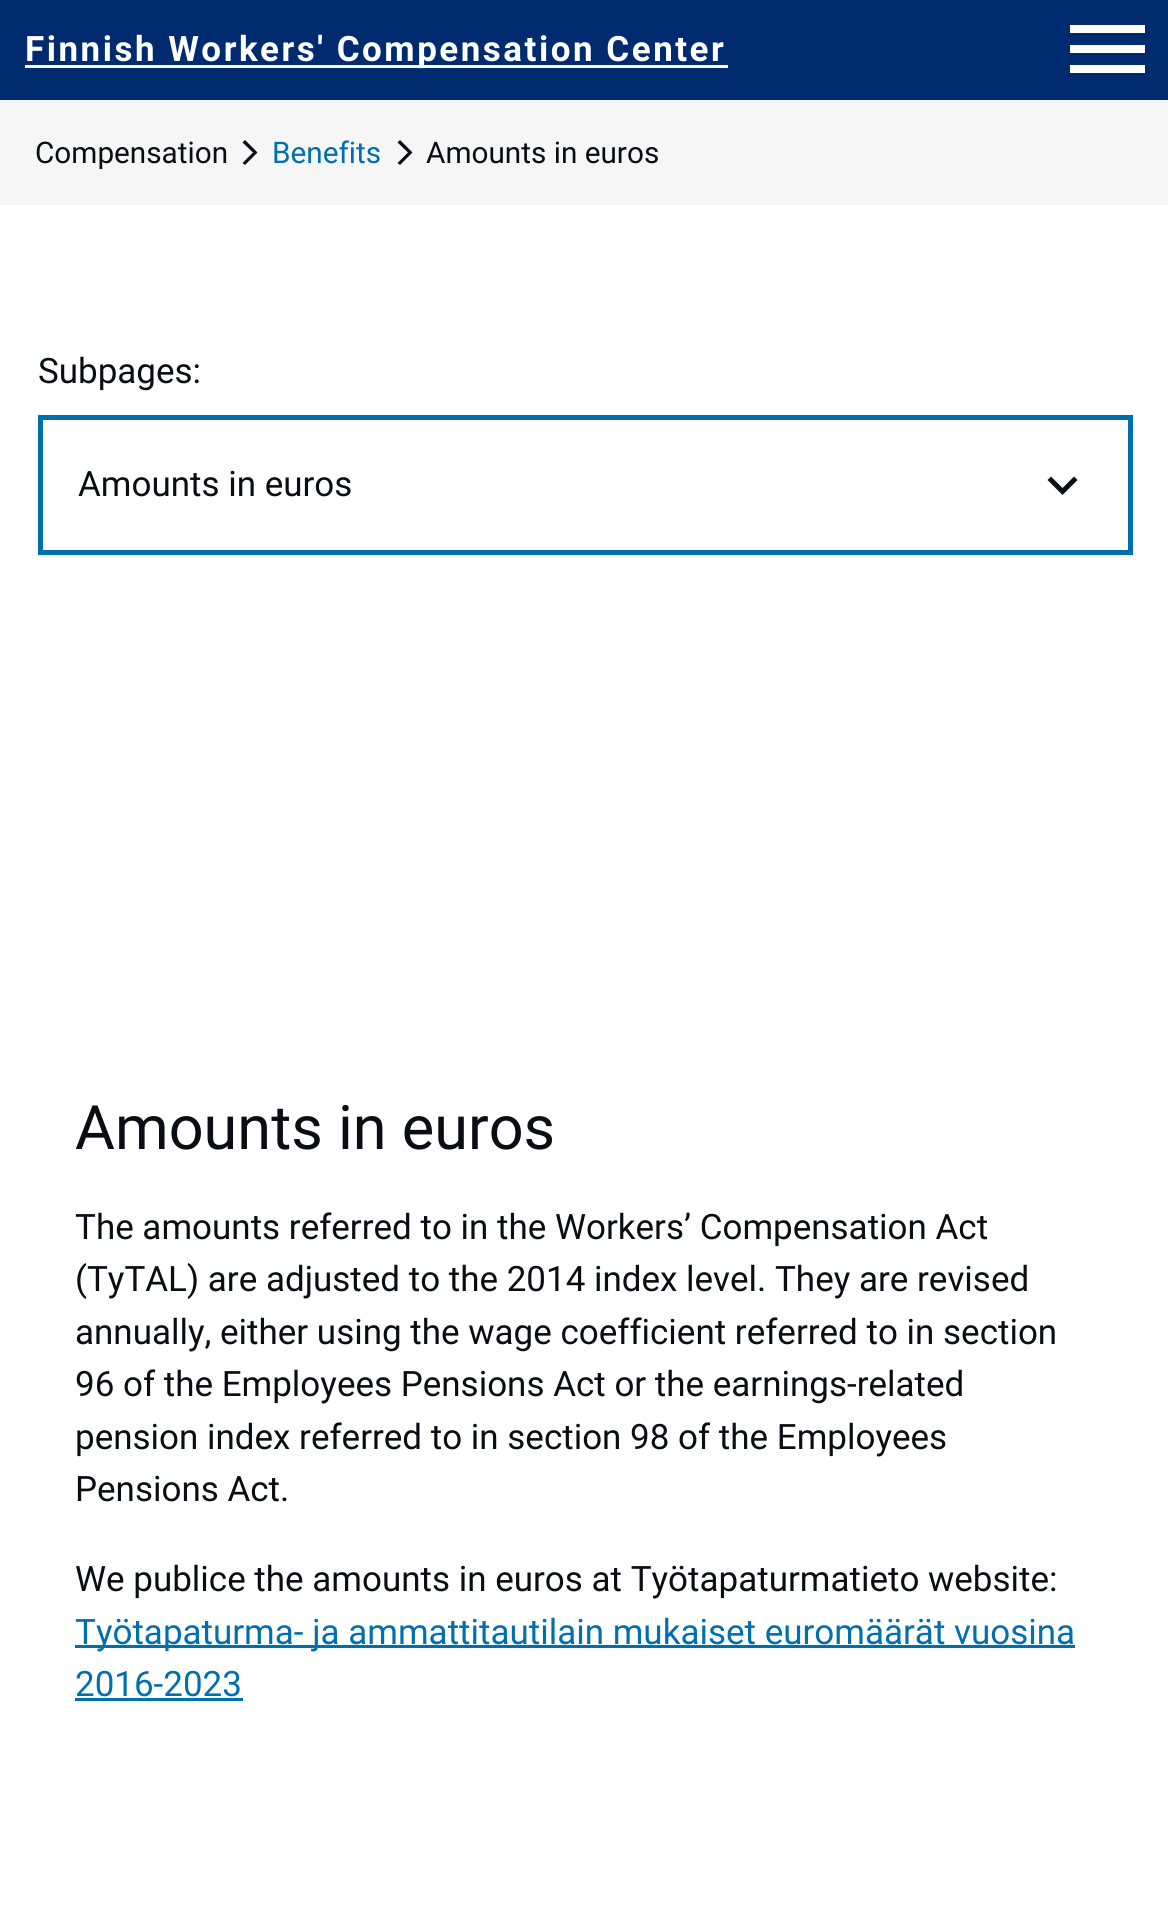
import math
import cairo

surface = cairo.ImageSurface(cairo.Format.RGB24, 1168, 1916)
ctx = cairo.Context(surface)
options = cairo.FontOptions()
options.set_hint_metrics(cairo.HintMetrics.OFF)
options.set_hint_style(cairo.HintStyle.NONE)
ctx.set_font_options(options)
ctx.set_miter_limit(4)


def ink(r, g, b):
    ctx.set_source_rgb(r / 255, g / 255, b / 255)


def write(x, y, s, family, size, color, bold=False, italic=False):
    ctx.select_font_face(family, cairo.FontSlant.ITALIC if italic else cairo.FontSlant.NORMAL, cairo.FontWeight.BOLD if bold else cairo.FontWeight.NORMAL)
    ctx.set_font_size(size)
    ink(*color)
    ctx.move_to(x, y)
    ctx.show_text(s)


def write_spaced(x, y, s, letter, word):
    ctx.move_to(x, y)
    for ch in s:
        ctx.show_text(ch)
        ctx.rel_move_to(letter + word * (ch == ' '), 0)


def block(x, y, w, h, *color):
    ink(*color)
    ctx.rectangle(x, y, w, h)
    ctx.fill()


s1 = dict(family="Roboto", size=29.75, color=(10, 14, 20))
s2 = dict(family="Roboto", size=29.75, color=(0, 111, 174))
s3 = dict(family="Roboto", size=35, color=(10, 14, 20))
s4 = dict(family="Roboto", size=61.25, color=(10, 14, 20))
s5 = dict(family="Roboto", size=35, color=(0, 111, 174))

ink(255, 255, 255)
ctx.paint()
block(0, 0, 1168, 100, 0, 44, 111)
block(25, 65, 703, 3, 255, 255, 255)
ctx.select_font_face("Roboto", cairo.FontSlant.NORMAL, cairo.FontWeight.BOLD)
ctx.set_font_size(35)
write_spaced(25, 61, "Finnish Workers' Compensation Center", 2.5, 0)
block(1070, 25, 75, 8, 255, 255, 255)
block(1070, 45, 75, 8, 255, 255, 255)
block(1070, 65, 75, 8, 255, 255, 255)
block(0, 100, 1168, 105, 246, 246, 246)
write(35, 163, "Compensation", **s1)
ctx.new_path()
ctx.move_to(242.5, 163)
ctx.line_to(245, 165)
ctx.line_to(257.5, 152.5)
ctx.line_to(245, 140)
ctx.line_to(242.5, 142.5)
ctx.line_to(253, 152.5)
ctx.close_path()
ctx.fill()
write(272, 163, "Benefits", **s2)
ink(10, 14, 20)
ctx.new_path()
ctx.move_to(397.5, 163)
ctx.line_to(400, 165)
ctx.line_to(412.5, 152.5)
ctx.line_to(400, 140)
ctx.line_to(397.5, 142.5)
ctx.line_to(408, 152.5)
ctx.close_path()
ctx.fill()
write(426, 163, "Amounts in euros", **s1)
write(38, 383, "Subpages:", **s3)
ctx.rectangle(40.5, 417.5, 1090, 135)
ink(0, 111, 174)
ctx.set_line_width(5)
ctx.stroke()
write(78, 496, "Amounts in euros", **s3)
ctx.new_path()
ctx.move_to(1051, 476.5)
ctx.line_to(1062.5, 488)
ctx.line_to(1074, 476.5)
ctx.line_to(1077.5, 480)
ctx.line_to(1062.5, 495)
ctx.line_to(1047.5, 480)
ctx.close_path()
ctx.fill()
write(75, 1149, "Amounts in euros", **s4)
write(75, 1239, "The amounts referred to in the Workers’ Compensation Act", **s3)
write(75, 1291, "(TyTAL) are adjusted to the 2014 index level. They are revised", **s3)
write(75, 1344, "annually, either using the wage coefficient referred to in section", **s3)
write(75, 1396, "96 of the Employees Pensions Act or the earnings-related", **s3)
write(75, 1449, "pension index referred to in section 98 of the Employees", **s3)
write(75, 1501, "Pensions Act.", **s3)
write(75, 1591, "We publice the amounts in euros at Työtapaturmatieto website:", **s3)
block(75, 1645, 1000, 3, 0, 111, 174)
write(75, 1644, "Työtapaturma- ja ammattitautilain mukaiset euromäärät vuosina", **s5)
write(75, 1696, "2016-2023", **s5)
block(75, 1698, 168, 3, 0, 111, 174)
surface.write_to_png("screenshot.png")
